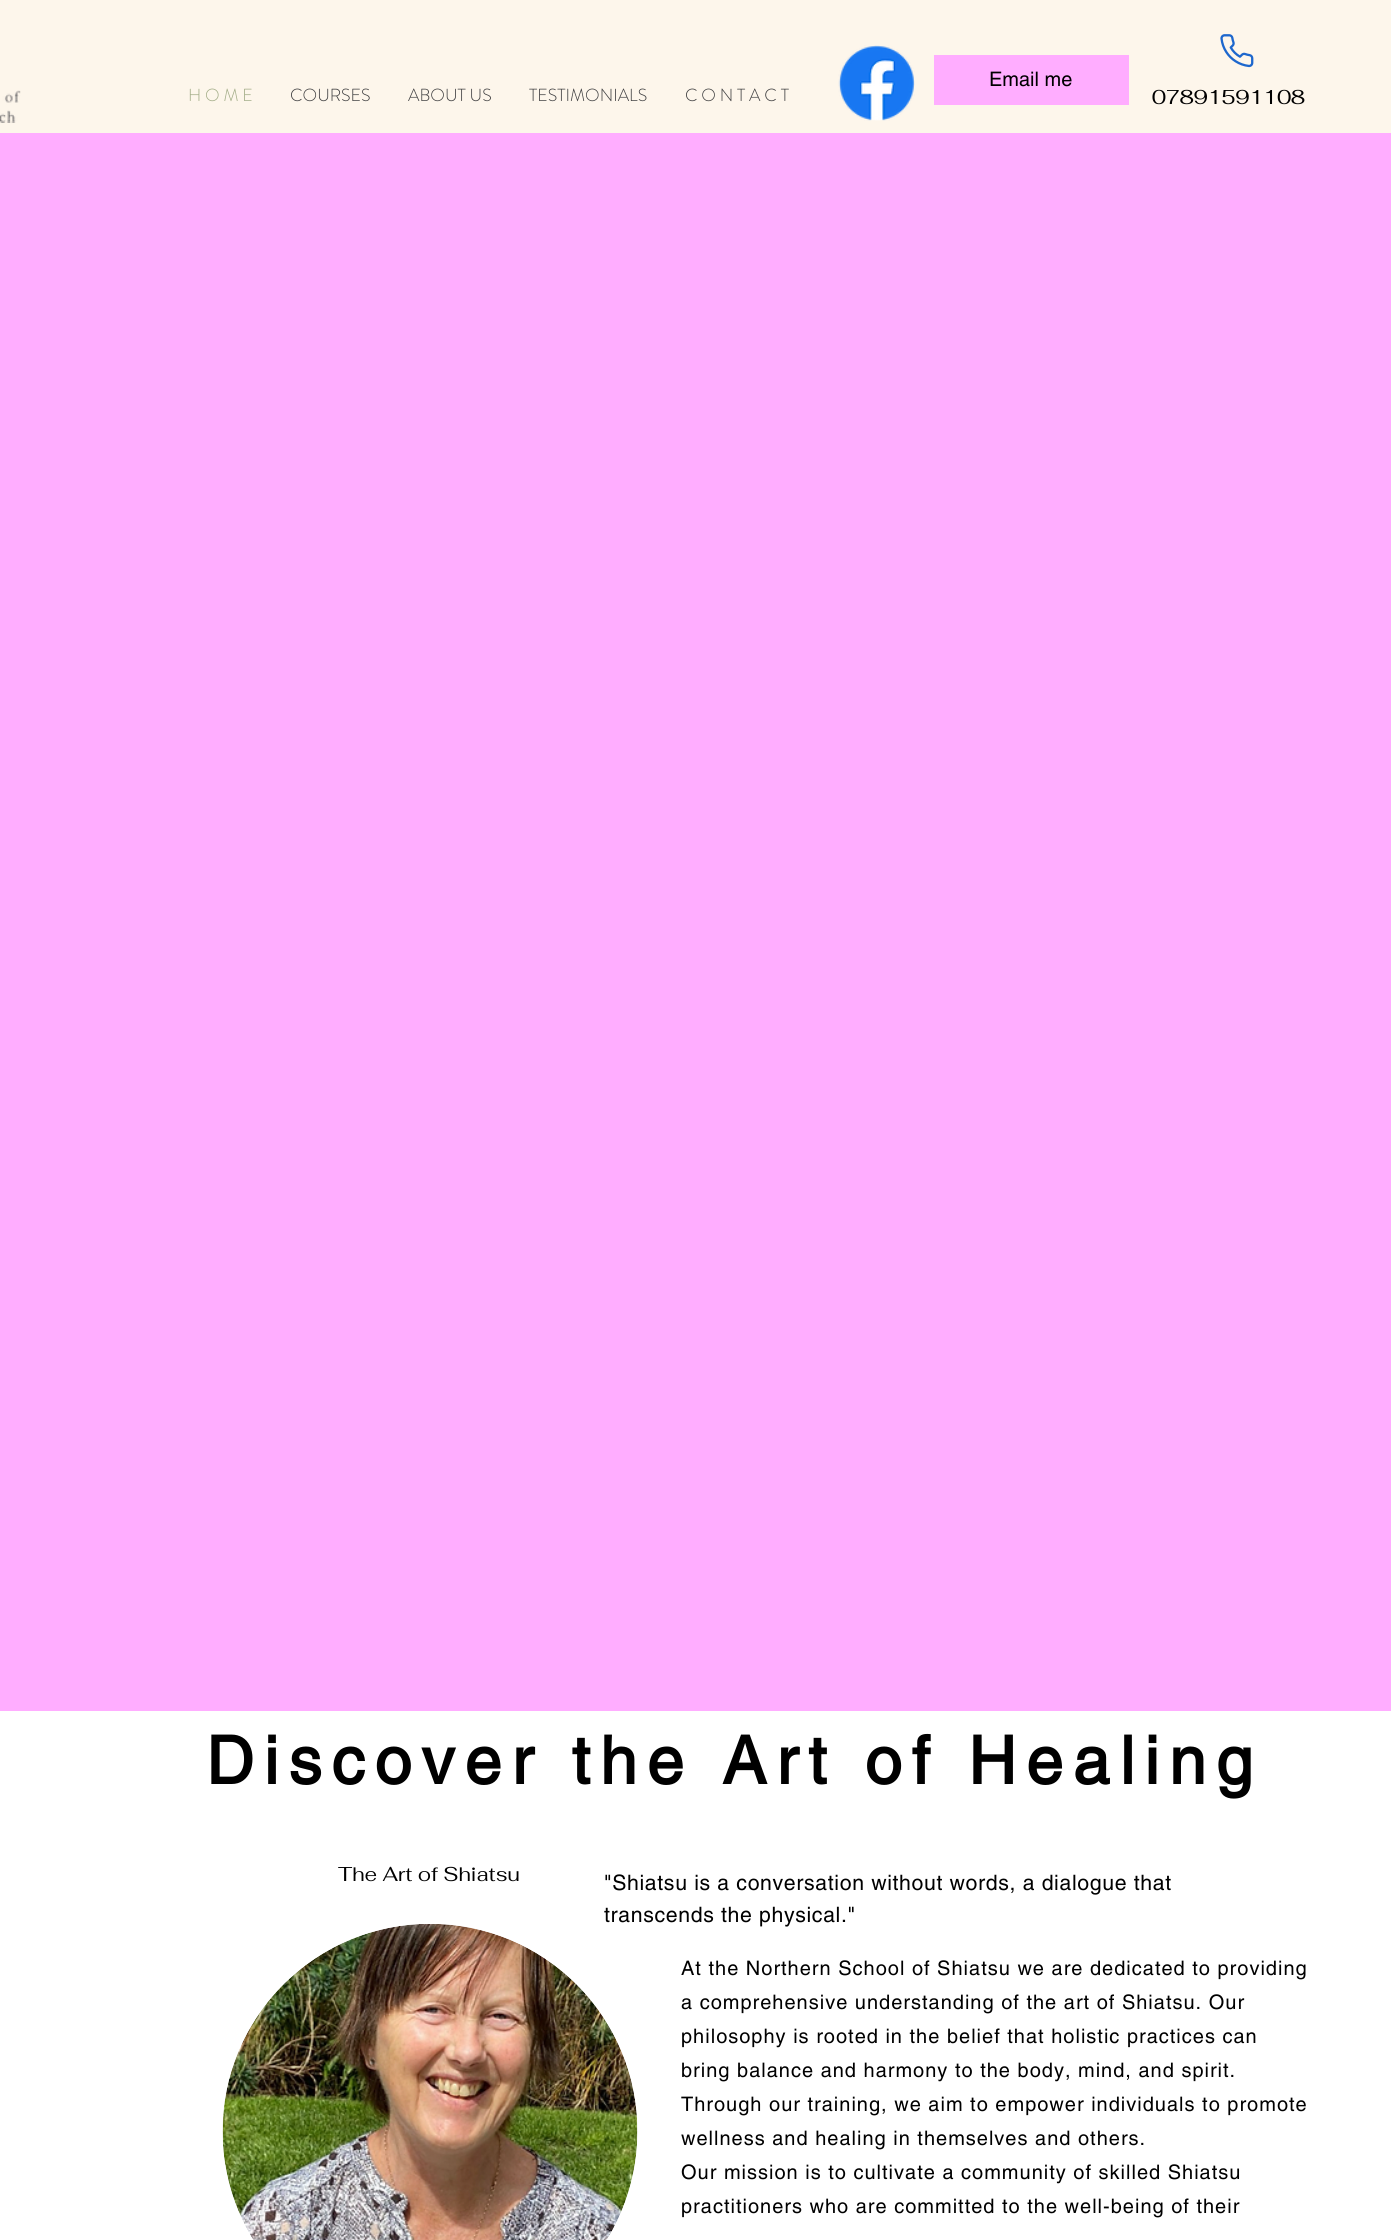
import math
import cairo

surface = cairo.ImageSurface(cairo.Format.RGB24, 1391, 2240)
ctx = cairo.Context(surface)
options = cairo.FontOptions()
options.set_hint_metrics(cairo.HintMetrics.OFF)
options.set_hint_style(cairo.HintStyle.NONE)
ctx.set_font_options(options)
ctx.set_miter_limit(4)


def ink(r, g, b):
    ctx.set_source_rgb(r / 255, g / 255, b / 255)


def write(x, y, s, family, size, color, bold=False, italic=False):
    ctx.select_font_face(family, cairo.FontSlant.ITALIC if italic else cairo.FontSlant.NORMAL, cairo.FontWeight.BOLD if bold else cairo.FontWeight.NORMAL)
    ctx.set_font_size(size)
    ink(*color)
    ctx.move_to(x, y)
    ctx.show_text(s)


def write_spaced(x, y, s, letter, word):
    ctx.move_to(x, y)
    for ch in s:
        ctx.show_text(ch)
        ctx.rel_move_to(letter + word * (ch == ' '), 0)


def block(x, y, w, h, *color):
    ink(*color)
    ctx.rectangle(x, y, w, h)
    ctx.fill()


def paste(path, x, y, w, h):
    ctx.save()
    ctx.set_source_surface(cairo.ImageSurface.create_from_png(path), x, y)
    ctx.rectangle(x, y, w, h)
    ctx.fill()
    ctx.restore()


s1 = dict(family="helvetica", size=20, color=(0, 0, 0))
s2 = dict(family="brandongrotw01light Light", size=17.5, color=(162, 172, 135))
s3 = dict(family="brandongrotw01light Light", size=17.5, color=(64, 64, 65))
s4 = dict(family="Fahkwang", size=20, color=(0, 0, 0))

ink(255, 173, 255)
ctx.paint()
block(0, 0, 1391, 133, 253, 246, 235)
paste("pic1.png", 838, 45, 77, 76)
block(934, 55, 195, 50, 255, 173, 255)
write(989, 86, "Email me", **s1)
paste("pic2.png", 1220, 34, 34, 34)
paste("pic3.png", 0, 90, 21, 33)
write(188, 101, "H O M E", **s2)
write(290, 101, "COURSES", **s3)
write(408, 101, "ABOUT US", **s3)
write(529, 101, "TESTIMONIALS", **s3)
write(685, 101, "C O N T A C T", **s3)
write(1152, 104, "07891591108", **s4)
block(0, 1711, 1391, 529, 255, 255, 255)
ctx.select_font_face("helvetica", cairo.FontSlant.NORMAL, cairo.FontWeight.BOLD)
ctx.set_font_size(66.25)
ink(0, 0, 0)
write_spaced(206, 1784, "Discover the Art of Healing", 9.95, 0)
write(338, 1881, "The Art of Shiatsu", **s4)
ctx.select_font_face("helvetica")
ctx.set_font_size(21.25)
write_spaced(604, 1890, "\"Shiatsu is a conversation without words, a dialogue that", 0.65, 0)
paste("pic4.png", 222, 1924, 416, 316)
write_spaced(604, 1922, "transcends the physical.\"", 0.65, 0)
ctx.set_font_size(20)
write_spaced(681, 1975, "At the Northern School of Shiatsu we are dedicated to providing", 1, 0)
write_spaced(681, 2009, "a comprehensive understanding of the art of Shiatsu. Our", 1, 0)
write_spaced(681, 2043, "philosophy is rooted in the belief that holistic practices can", 1, 0)
write_spaced(681, 2077, "bring balance and harmony to the body, mind, and spirit.", 1, 0)
write_spaced(681, 2111, "Through our training, we aim to empower individuals to promote", 1, 0)
write_spaced(681, 2145, "wellness and healing in themselves and others.", 1, 0)
write_spaced(681, 2179, "Our mission is to cultivate a community of skilled Shiatsu", 1, 0)
write_spaced(681, 2213, "practitioners who are committed to the well-being of their", 1, 0)
surface.write_to_png("screenshot.png")
